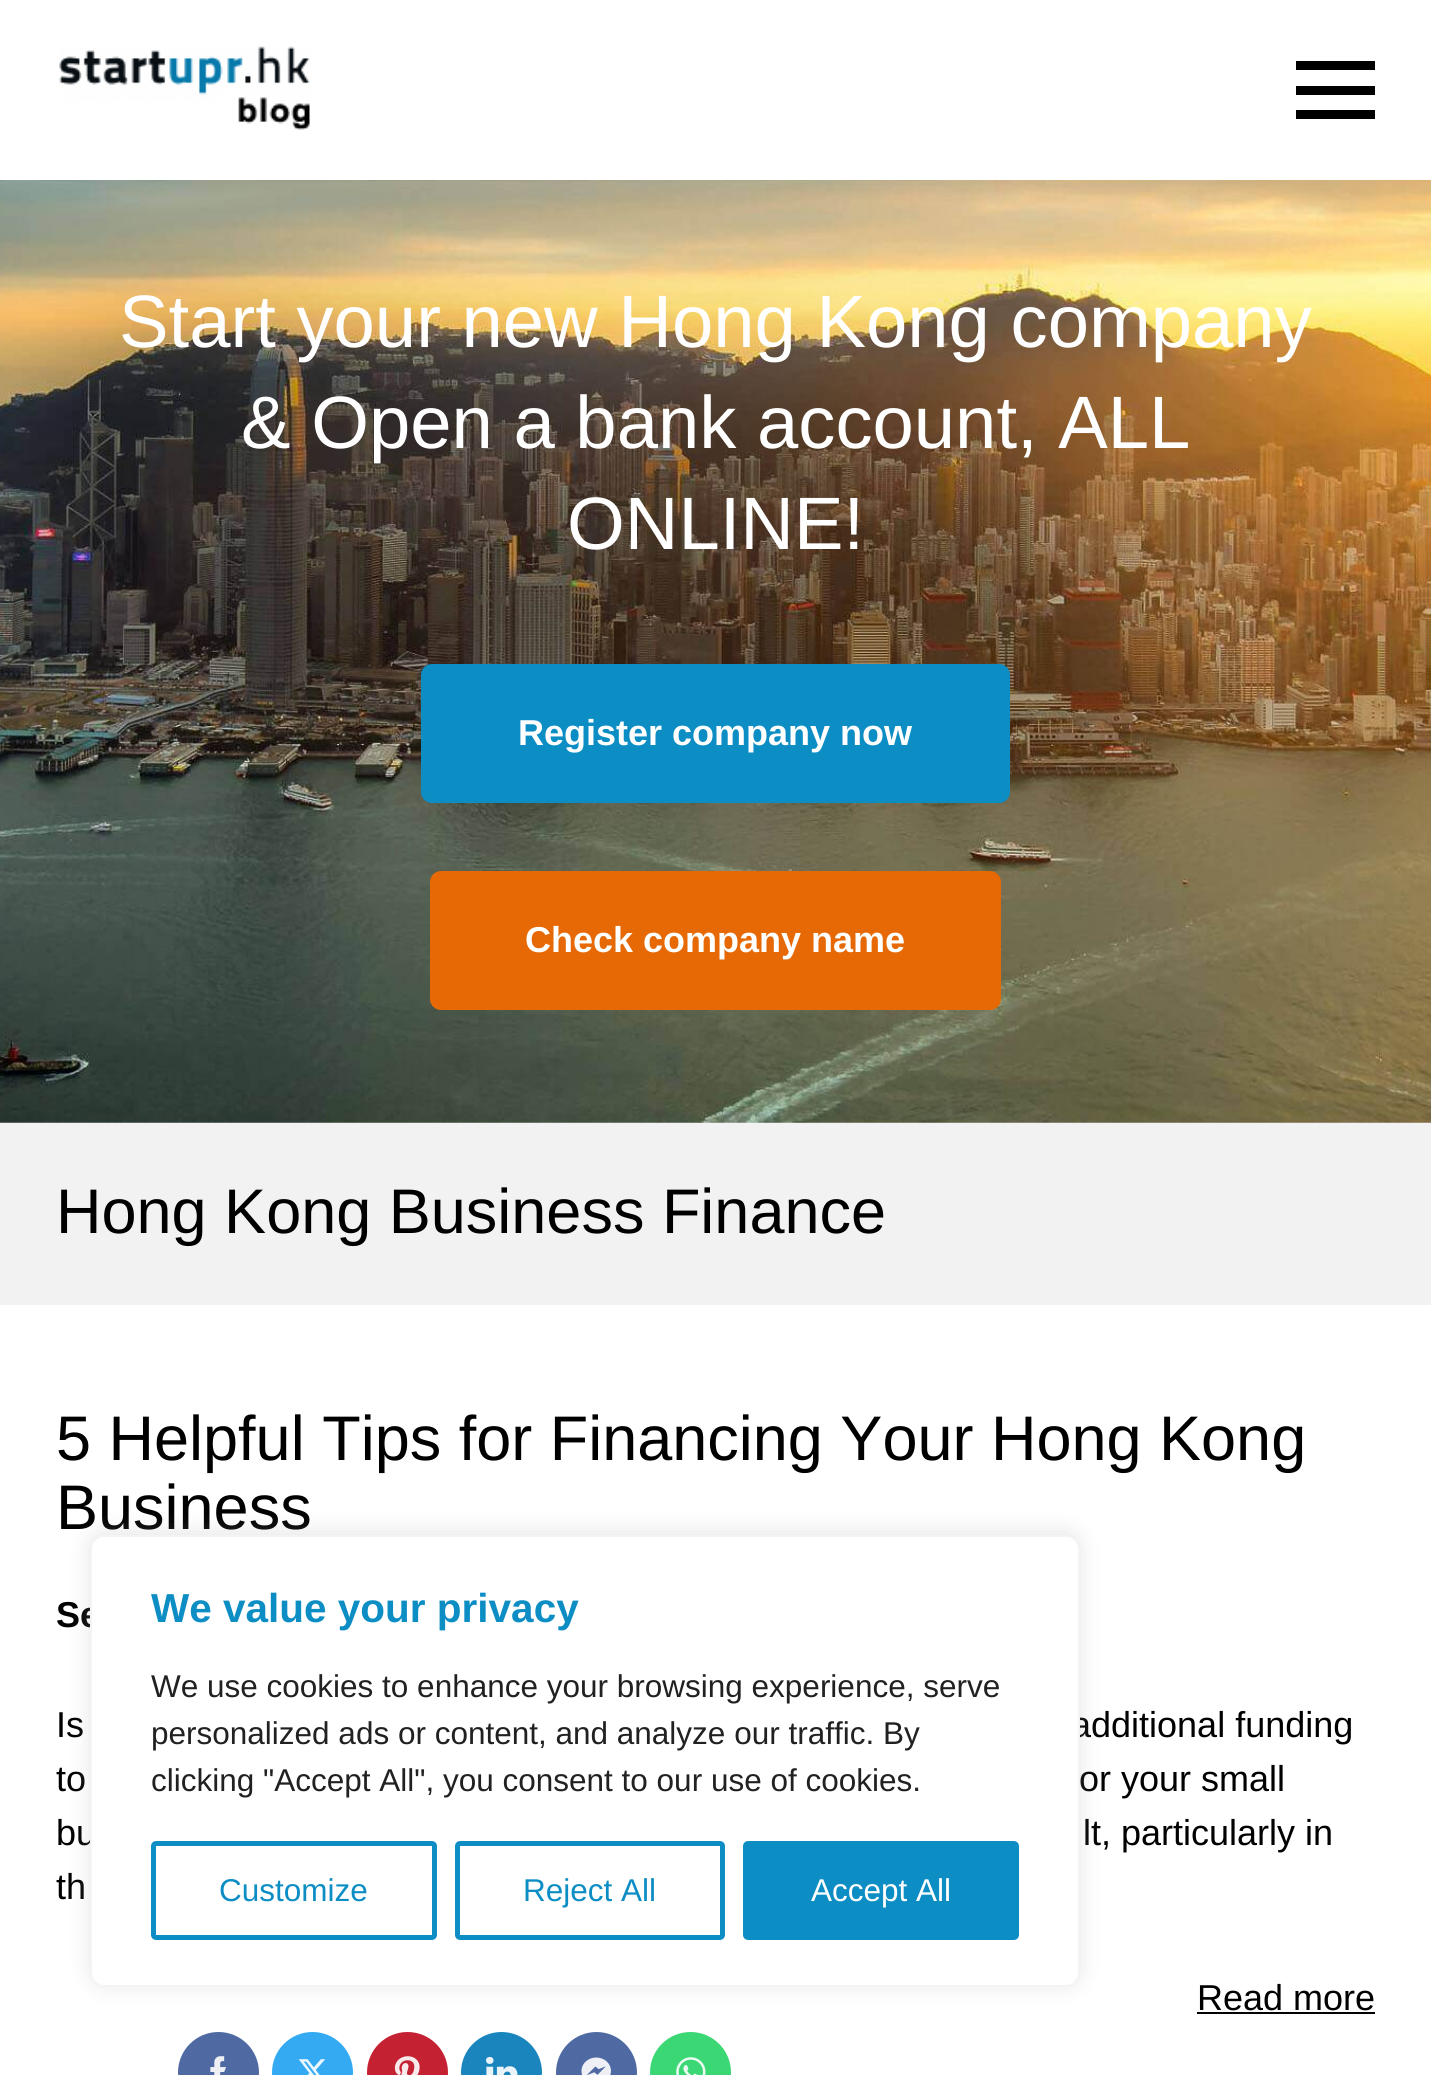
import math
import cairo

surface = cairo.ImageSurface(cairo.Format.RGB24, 1431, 2075)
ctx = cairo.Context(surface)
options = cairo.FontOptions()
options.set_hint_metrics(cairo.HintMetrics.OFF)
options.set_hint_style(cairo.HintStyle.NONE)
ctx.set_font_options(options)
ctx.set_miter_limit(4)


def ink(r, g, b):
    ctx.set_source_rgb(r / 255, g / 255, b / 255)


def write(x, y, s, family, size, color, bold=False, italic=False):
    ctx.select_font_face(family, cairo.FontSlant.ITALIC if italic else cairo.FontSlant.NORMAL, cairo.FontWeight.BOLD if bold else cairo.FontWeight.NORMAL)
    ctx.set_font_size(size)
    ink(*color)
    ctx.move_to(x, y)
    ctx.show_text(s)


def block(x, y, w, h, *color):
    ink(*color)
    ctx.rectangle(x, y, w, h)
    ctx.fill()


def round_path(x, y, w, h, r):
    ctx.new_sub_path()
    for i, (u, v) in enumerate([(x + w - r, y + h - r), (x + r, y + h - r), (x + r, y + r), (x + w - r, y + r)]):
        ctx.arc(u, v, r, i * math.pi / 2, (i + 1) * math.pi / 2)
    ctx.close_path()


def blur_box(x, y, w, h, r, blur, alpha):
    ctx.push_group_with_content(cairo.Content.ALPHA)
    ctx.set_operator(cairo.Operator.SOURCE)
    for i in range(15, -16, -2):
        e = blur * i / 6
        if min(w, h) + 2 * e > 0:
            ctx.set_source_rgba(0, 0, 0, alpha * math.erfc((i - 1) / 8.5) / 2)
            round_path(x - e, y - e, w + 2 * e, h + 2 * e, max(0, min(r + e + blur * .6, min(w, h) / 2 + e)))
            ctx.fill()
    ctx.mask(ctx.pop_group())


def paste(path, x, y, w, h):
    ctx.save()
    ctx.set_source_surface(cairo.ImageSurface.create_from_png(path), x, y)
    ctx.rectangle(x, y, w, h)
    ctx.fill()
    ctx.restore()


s1 = dict(family="Liberation Sans", size=74.25, color=(255, 255, 255))
s2 = dict(family="Liberation Sans", size=36, color=(255, 255, 255), bold=True)
s3 = dict(family="Liberation Sans", size=63, color=(0, 0, 0))
s4 = dict(family="Liberation Sans", size=36, color=(0, 0, 0), bold=True)
s5 = dict(family="Liberation Sans", size=36, color=(0, 0, 0))
s6 = dict(family="Liberation Sans", size=40.5, color=(12, 141, 196), bold=True)
s7 = dict(family="Liberation Sans", size=31.5, color=(33, 33, 33))
s8 = dict(family="Liberation Sans", size=31.5, color=(12, 141, 196))
s9 = dict(family="Liberation Sans", size=31.5, color=(255, 255, 255))

ink(242, 242, 242)
ctx.paint()
block(0, 0, 1431, 180, 255, 255, 255)
paste("pic1.png", 59, 46, 251, 84)
block(1296, 61, 79, 9, 0, 0, 0)
block(1296, 86, 79, 9, 0, 0, 0)
block(1296, 110, 79, 9, 0, 0, 0)
paste("pic2.png", 0, 180, 1431, 943)
write(119, 347, "Start your new Hong Kong company", **s1)
write(241, 448, "& Open a bank account, ALL", **s1)
write(567, 549, "ONLINE!", **s1)
ink(12, 141, 196)
round_path(421, 664, 589, 139, 11)
ctx.fill()
write(518, 745, "Register company now", **s2)
ink(230, 105, 5)
round_path(430, 871, 571, 139, 11)
ctx.fill()
write(525, 952, "Check company name", **s2)
write(56, 1233, "Hong Kong Business Finance", **s3)
block(0, 1305, 1431, 770, 255, 255, 255)
write(56, 1460, "5 Helpful Tips for Financing Your Hong Kong", **s3)
write(56, 1529, "Business", **s3)
write(56, 1627, "Se", **s4)
write(56, 1737, "Is", **s5)
write(1071, 1737, "additional funding", **s5)
write(56, 1791, "to", **s5)
write(1079, 1791, "or your small", **s5)
write(56, 1845, "bu", **s5)
write(1083, 1845, "lt, particularly in", **s5)
write(56, 1899, "th", **s5)
write(1197, 2010, "Read more", **s5)
block(1197, 2012, 178, 2, 0, 0, 0)
ink(79, 106, 162)
ctx.new_path()
ctx.arc(218.5, 2072.5, 40.5, 0, 2 * math.pi)
ctx.fill()
paste("pic3.png", 210, 2056, 16, 19)
ink(52, 170, 243)
ctx.arc(312.5, 2072.5, 40.5, 0, 2 * math.pi)
ctx.fill()
paste("pic4.png", 298, 2059, 28, 16)
ink(196, 33, 51)
ctx.arc(407.5, 2072.5, 40.5, 0, 2 * math.pi)
ctx.fill()
paste("pic5.png", 394, 2056, 26, 19)
ink(26, 133, 188)
ctx.arc(501.5, 2072.5, 40.5, 0, 2 * math.pi)
ctx.fill()
paste("pic6.png", 486, 2056, 32, 19)
ink(79, 106, 162)
ctx.arc(596.5, 2072.5, 40.5, 0, 2 * math.pi)
ctx.fill()
paste("pic7.png", 581, 2057, 30, 18)
ink(59, 215, 117)
ctx.arc(690.5, 2072.5, 40.5, 0, 2 * math.pi)
ctx.fill()
paste("pic8.png", 676, 2057, 30, 18)
ink(172, 171, 171)
blur_box(90, 1532, 990, 453, 14, 11, 0.3)
ink(255, 255, 255)
round_path(91, 1536, 988, 450, 13)
ctx.fill_preserve()
ink(244, 244, 244)
ctx.stroke()
write(151, 1622, "We value your privacy", **s6)
write(151, 1697, "We use cookies to enhance your browsing experience, serve", **s7)
write(151, 1744, "personalized ads or content, and analyze our traffic. By", **s7)
write(151, 1791, "clicking \"Accept All\", you consent to our use of cookies.", **s7)
round_path(153.5, 1843.5, 281, 94, 2.5)
ink(12, 141, 196)
ctx.set_line_width(5)
ctx.stroke()
write(219, 1901, "Customize", **s8)
round_path(457.5, 1843.5, 265, 94, 2.5)
ctx.stroke()
write(523, 1901, "Reject All", **s8)
round_path(745.5, 1843.5, 271, 94, 2.5)
ctx.fill_preserve()
ctx.stroke()
write(811, 1901, "Accept All", **s9)
surface.write_to_png("screenshot.png")
